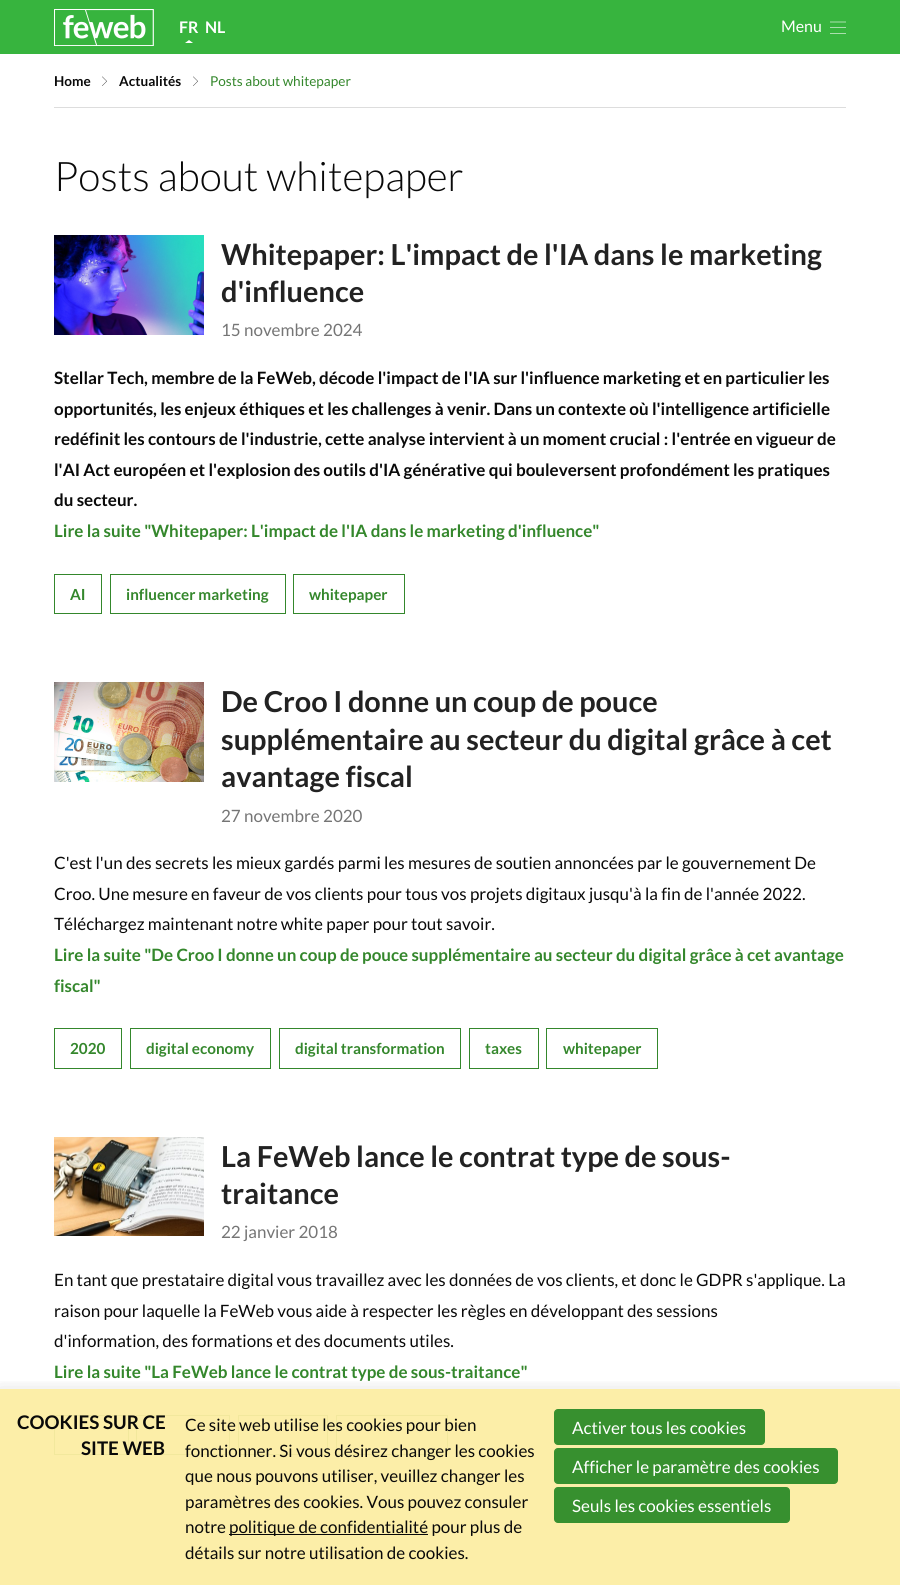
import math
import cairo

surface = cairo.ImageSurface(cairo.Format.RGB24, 900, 1585)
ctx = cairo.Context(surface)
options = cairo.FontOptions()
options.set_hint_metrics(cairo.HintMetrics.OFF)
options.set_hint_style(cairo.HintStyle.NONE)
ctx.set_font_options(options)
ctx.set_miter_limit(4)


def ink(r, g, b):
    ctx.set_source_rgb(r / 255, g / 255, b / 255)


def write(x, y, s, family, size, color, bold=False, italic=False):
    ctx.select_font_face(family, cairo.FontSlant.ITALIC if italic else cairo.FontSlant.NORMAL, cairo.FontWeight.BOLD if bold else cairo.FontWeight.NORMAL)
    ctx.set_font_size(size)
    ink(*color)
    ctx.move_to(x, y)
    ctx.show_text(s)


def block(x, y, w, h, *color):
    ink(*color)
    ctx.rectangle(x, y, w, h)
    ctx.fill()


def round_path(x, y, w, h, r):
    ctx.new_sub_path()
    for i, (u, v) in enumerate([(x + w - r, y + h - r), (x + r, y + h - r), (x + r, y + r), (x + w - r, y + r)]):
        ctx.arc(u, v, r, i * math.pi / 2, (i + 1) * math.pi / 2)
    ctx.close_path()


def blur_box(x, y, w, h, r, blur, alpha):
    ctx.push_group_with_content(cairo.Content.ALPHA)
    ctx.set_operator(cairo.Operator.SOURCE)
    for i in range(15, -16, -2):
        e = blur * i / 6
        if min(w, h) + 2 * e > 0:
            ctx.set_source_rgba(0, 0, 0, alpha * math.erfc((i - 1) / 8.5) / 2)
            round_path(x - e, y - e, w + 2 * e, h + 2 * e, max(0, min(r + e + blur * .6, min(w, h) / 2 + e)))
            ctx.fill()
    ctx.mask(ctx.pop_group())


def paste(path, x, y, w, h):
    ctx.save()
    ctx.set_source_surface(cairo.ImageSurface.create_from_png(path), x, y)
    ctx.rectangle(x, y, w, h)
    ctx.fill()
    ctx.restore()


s1 = dict(family="Lato", size=16, color=(255, 255, 255), bold=True)
s2 = dict(family="Lato", size=16, color=(255, 255, 255))
s3 = dict(family="Lato", size=13.6, color=(9, 9, 9), bold=True)
s4 = dict(family="Lato", size=13.6, color=(52, 135, 44))
s5 = dict(family="Lato Light", size=40.75, color=(9, 9, 9))
s6 = dict(family="Lato", size=28.9, color=(34, 34, 34), bold=True)
s7 = dict(family="Lato", size=17, color=(117, 117, 117))
s8 = dict(family="Lato", size=17, color=(9, 9, 9), bold=True)
s9 = dict(family="Lato", size=17, color=(52, 135, 44), bold=True)
s10 = dict(family="Lato", size=15.25, color=(52, 135, 44), bold=True)
s11 = dict(family="Lato", size=17, color=(9, 9, 9))
s12 = dict(family="Lato", size=18.75, color=(9, 9, 9), bold=True)
s13 = dict(family="Lato", size=17, color=(255, 255, 255))

ink(255, 255, 255)
ctx.paint()
block(0, 1389, 900, 196, 252, 238, 168)
block(0, 0, 900, 54, 55, 180, 62)
paste("pic1.png", 54, 9, 100, 37)
write(179, 33, "FR", **s1)
ctx.new_path()
ctx.move_to(193, 43)
ctx.line_to(185, 43)
ctx.line_to(189, 40)
ctx.close_path()
ctx.fill()
write(205, 33, "NL", **s1)
write(781, 32, "Menu", **s2)
paste("pic2.png", 830, 21, 16, 13)
block(54, 107, 792, 1, 221, 221, 221)
write(54, 86, "Home", **s3)
paste("pic3.png", 102, 76, 5, 10)
write(119, 86, "Actualités", **s3)
paste("pic3.png", 193, 76, 5, 10)
write(210, 86, "Posts about whitepaper", **s4)
write(54, 191, "Posts about whitepaper", **s5)
paste("pic4.png", 54, 235, 150, 100)
write(221, 265, "Whitepaper: L'impact de l'IA dans le marketing", **s6)
write(221, 302, "d'influence", **s6)
write(221, 336, "15 novembre 2024", **s7)
write(54, 384, "Stellar Tech, membre de la FeWeb, décode l'impact de l'IA sur l'influence marketing et en particulier les", **s8)
write(54, 415, "opportunités, les enjeux éthiques et les challenges à venir. Dans un contexte où l'intelligence artificielle", **s8)
write(54, 445, "redéfinit les contours de l'industrie, cette analyse intervient à un moment crucial : l'entrée en vigueur de", **s8)
write(54, 476, "l'AI Act européen et l'explosion des outils d'IA générative qui bouleversent profondément les pratiques", **s8)
write(54, 506, "du secteur.", **s8)
write(54, 537, "Lire la suite \"Whitepaper: L'impact de l'IA dans le marketing d'influence\"", **s9)
ctx.rectangle(54.5, 574.5, 47, 39)
ctx.set_line_width(1)
ctx.stroke()
write(70, 600, "AI", **s10)
ctx.rectangle(110.5, 574.5, 175, 39)
ctx.stroke()
write(126, 600, "influencer marketing", **s10)
ctx.rectangle(293.5, 574.5, 111, 39)
ctx.stroke()
write(309, 600, "whitepaper", **s10)
paste("pic5.png", 54, 682, 150, 100)
write(221, 712, "De Croo I donne un coup de pouce", **s6)
write(221, 750, "supplémentaire au secteur du digital grâce à cet", **s6)
write(221, 787, "avantage fiscal", **s6)
write(221, 822, "27 novembre 2020", **s7)
write(54, 869, "C'est l'un des secrets les mieux gardés parmi les mesures de soutien annoncées par le gouvernement De", **s11)
write(54, 900, "Croo. Une mesure en faveur de vos clients pour tous vos projets digitaux jusqu'à la fin de l'année 2022.", **s11)
write(54, 930, "Téléchargez maintenant notre white paper pour tout savoir.", **s11)
write(54, 961, "Lire la suite \"De Croo I donne un coup de pouce supplémentaire au secteur du digital grâce à cet avantage", **s9)
write(54, 992, "fiscal\"", **s9)
ctx.rectangle(54.5, 1028.5, 67, 40)
ctx.stroke()
write(70, 1054, "2020", **s10)
ctx.rectangle(130.5, 1028.5, 140, 40)
ctx.stroke()
write(146, 1054, "digital economy", **s10)
ctx.rectangle(279.5, 1028.5, 181, 40)
ctx.stroke()
write(295, 1054, "digital transformation", **s10)
ctx.rectangle(469.5, 1028.5, 69, 40)
ctx.stroke()
write(485, 1054, "taxes", **s10)
ctx.rectangle(546.5, 1028.5, 111, 40)
ctx.stroke()
write(563, 1054, "whitepaper", **s10)
paste("pic6.png", 54, 1137, 150, 99)
write(221, 1167, "La FeWeb lance le contrat type de sous-", **s6)
write(221, 1204, "traitance", **s6)
write(221, 1238, "22 janvier 2018", **s7)
write(54, 1286, "En tant que prestataire digital vous travaillez avec les données de vos clients, et donc le GDPR s'applique. La", **s11)
write(54, 1317, "raison pour laquelle la FeWeb vous aide à respecter les règles en développant des sessions", **s11)
write(54, 1347, "d'information, des formations et des documents utiles.", **s11)
write(54, 1378, "Lire la suite \"La FeWeb lance le contrat type de sous-traitance\"", **s9)
ctx.rectangle(54.5, 1415.5, 74, 39)
ink(242, 232, 157)
ctx.stroke()
ctx.rectangle(136.5, 1415.5, 93, 39)
ctx.stroke()
ctx.rectangle(238.5, 1415.5, 89, 39)
ctx.stroke()
ctx.rectangle(336.5, 1415.5, 111, 39)
ctx.stroke()
ctx.save()
ctx.rectangle(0, 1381, 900, 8)
ctx.clip()
ink(0, 0, 0)
blur_box(0, 1394, 900, 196, 0, 10, 0.2)
ctx.restore()
write(17, 1429, "COOKIES SUR CE", **s12)
write(81, 1455, "SITE WEB", **s12)
write(185, 1431, "Ce site web utilise les cookies pour bien", **s11)
write(185, 1457, "fonctionner. Si vous désirez changer les cookies", **s11)
write(185, 1482, "que nous pouvons utiliser, veuillez changer les", **s11)
write(185, 1508, "paramètres des cookies. Vous pouvez consuler", **s11)
write(185, 1533, "notre", **s11)
block(229, 1534, 199, 1, 9, 9, 9)
write(229, 1533, "politique de confidentialité pour plus de", **s11)
write(185, 1559, "détails sur notre utilisation de cookies.", **s11)
ink(55, 144, 47)
round_path(554.5, 1409.5, 210, 35, 3.5)
ctx.fill_preserve()
ctx.stroke()
write(572, 1434, "Activer tous les cookies", **s13)
ink(55, 144, 47)
round_path(554.5, 1448.5, 283, 35, 3.5)
ctx.fill_preserve()
ctx.stroke()
write(572, 1473, "Afficher le paramètre des cookies", **s13)
ink(55, 144, 47)
round_path(554.5, 1487.5, 235, 35, 3.5)
ctx.fill_preserve()
ctx.stroke()
write(572, 1512, "Seuls les cookies essentiels", **s13)
surface.write_to_png("screenshot.png")
